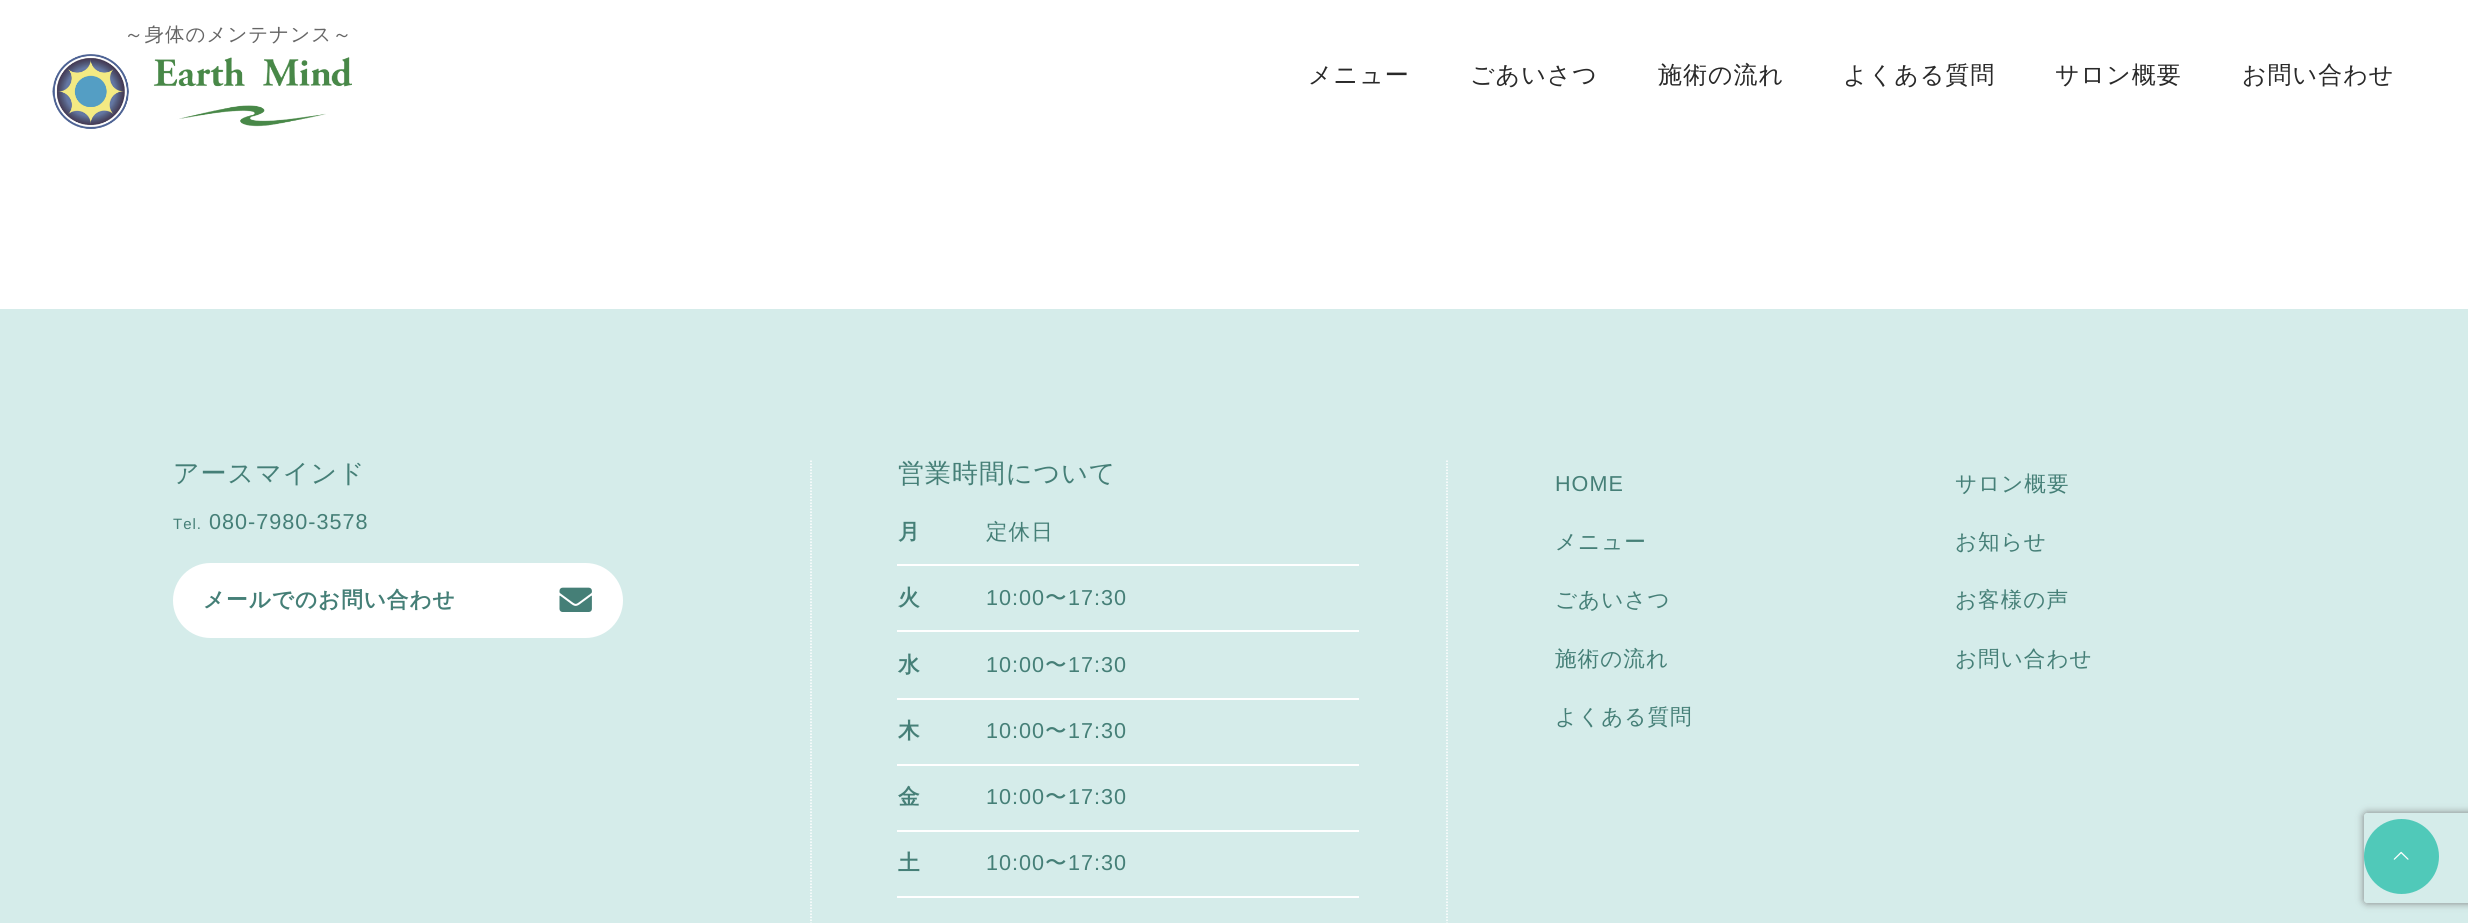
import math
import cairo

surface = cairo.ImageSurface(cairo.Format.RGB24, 2468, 923)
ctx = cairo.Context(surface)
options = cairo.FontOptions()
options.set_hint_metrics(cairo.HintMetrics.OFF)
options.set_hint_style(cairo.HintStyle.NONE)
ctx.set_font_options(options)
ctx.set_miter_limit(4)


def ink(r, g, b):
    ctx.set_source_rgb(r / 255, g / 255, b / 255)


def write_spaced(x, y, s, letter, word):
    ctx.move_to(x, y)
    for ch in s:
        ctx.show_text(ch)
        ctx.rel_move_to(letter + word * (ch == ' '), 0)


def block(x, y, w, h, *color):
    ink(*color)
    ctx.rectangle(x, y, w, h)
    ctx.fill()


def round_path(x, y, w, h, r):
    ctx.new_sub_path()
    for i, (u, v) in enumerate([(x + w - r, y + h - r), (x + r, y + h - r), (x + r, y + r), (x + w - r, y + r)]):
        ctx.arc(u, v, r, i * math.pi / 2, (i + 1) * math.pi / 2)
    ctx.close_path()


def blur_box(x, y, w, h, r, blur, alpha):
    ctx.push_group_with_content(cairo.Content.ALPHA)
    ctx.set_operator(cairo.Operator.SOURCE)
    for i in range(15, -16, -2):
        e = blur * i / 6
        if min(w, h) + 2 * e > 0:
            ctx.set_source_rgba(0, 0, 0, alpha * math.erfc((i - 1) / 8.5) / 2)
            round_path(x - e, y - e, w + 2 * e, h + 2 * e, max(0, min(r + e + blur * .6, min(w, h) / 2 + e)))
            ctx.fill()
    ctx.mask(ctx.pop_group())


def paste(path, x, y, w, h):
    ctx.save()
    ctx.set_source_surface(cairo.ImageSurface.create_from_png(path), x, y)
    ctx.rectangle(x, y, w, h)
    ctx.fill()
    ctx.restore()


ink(255, 255, 255)
ctx.paint()
ctx.select_font_face("WenQuanYi Zen Hei Medium")
ctx.set_font_size(19.5)
ink(102, 102, 102)
write_spaced(124, 41, "～身体のメンテナンス～", 1, 0)
paste("pic1.png", 52, 54, 300, 75)
ctx.set_font_size(24)
ink(41, 41, 41)
write_spaced(1308, 83, "メニュー", 1, 0)
write_spaced(1470, 83, "ごあいさつ", 1, 0)
write_spaced(1658, 83, "施術の流れ", 1, 0)
write_spaced(1843, 83, "よくある質問", 1, 0)
write_spaced(2055, 83, "サロン概要", 1, 0)
write_spaced(2242, 83, "お問い合わせ", 1, 0)
block(0, 309, 2468, 614, 213, 236, 234)
ctx.set_font_size(26)
ink(69, 127, 119)
write_spaced(173, 482, "アースマインド", 1, 0)
ctx.select_font_face("Liberation Sans")
ctx.set_font_size(15)
write_spaced(173, 529, "Tel.", 1, 0)
ctx.set_font_size(21.6)
write_spaced(209, 529, "080-7980-3578", 1, 0)
ink(255, 255, 255)
round_path(173, 563, 450, 75, 37.5)
ctx.fill()
ctx.select_font_face("WenQuanYi Zen Hei", cairo.FontSlant.NORMAL, cairo.FontWeight.BOLD)
ink(69, 127, 119)
write_spaced(203, 607, "メールでのお問い合わせ", 1, 0)
paste("pic2.png", 559, 587, 33, 25)
ctx.new_path()
ctx.move_to(1447, 460.5)
ctx.line_to(1447, 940.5)
ink(255, 255, 255)
ctx.set_line_width(1.5)
ctx.set_dash([1.5, 1.5])
ctx.stroke()
ctx.new_path()
ctx.move_to(811, 460.5)
ctx.line_to(811, 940.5)
ctx.stroke()
ctx.select_font_face("WenQuanYi Zen Hei Medium")
ctx.set_font_size(26)
ink(69, 127, 119)
write_spaced(898, 482, "営業時間について", 1, 0)
block(897, 564, 462, 2, 255, 255, 255)
ctx.select_font_face("WenQuanYi Zen Hei", cairo.FontSlant.NORMAL, cairo.FontWeight.BOLD)
ctx.set_font_size(21.6)
ink(69, 127, 119)
write_spaced(898, 539, "月", 1, 0)
ctx.select_font_face("WenQuanYi Zen Hei Medium")
write_spaced(986, 539, "定休日", 1, 0)
block(897, 630, 462, 2, 255, 255, 255)
ctx.select_font_face("WenQuanYi Zen Hei", cairo.FontSlant.NORMAL, cairo.FontWeight.BOLD)
ink(69, 127, 119)
write_spaced(898, 605, "火", 1, 0)
ctx.select_font_face("Liberation Sans")
write_spaced(986, 605, "10:00", 1, 0)
ctx.select_font_face("WenQuanYi Zen Hei Medium")
write_spaced(1045, 605, "〜", 1, 0)
ctx.select_font_face("Liberation Sans")
write_spaced(1068, 605, "17:30", 1, 0)
block(897, 698, 462, 2, 255, 255, 255)
ctx.select_font_face("WenQuanYi Zen Hei", cairo.FontSlant.NORMAL, cairo.FontWeight.BOLD)
ink(69, 127, 119)
write_spaced(898, 672, "水", 1, 0)
ctx.select_font_face("Liberation Sans")
write_spaced(986, 672, "10:00", 1, 0)
ctx.select_font_face("WenQuanYi Zen Hei Medium")
write_spaced(1045, 672, "〜", 1, 0)
ctx.select_font_face("Liberation Sans")
write_spaced(1068, 672, "17:30", 1, 0)
block(897, 764, 462, 2, 255, 255, 255)
ctx.select_font_face("WenQuanYi Zen Hei", cairo.FontSlant.NORMAL, cairo.FontWeight.BOLD)
ink(69, 127, 119)
write_spaced(898, 738, "木", 1, 0)
ctx.select_font_face("Liberation Sans")
write_spaced(986, 738, "10:00", 1, 0)
ctx.select_font_face("WenQuanYi Zen Hei Medium")
write_spaced(1045, 738, "〜", 1, 0)
ctx.select_font_face("Liberation Sans")
write_spaced(1068, 738, "17:30", 1, 0)
block(897, 830, 462, 2, 255, 255, 255)
ctx.select_font_face("WenQuanYi Zen Hei", cairo.FontSlant.NORMAL, cairo.FontWeight.BOLD)
ink(69, 127, 119)
write_spaced(898, 804, "金", 1, 0)
ctx.select_font_face("Liberation Sans")
write_spaced(986, 804, "10:00", 1, 0)
ctx.select_font_face("WenQuanYi Zen Hei Medium")
write_spaced(1045, 804, "〜", 1, 0)
ctx.select_font_face("Liberation Sans")
write_spaced(1068, 804, "17:30", 1, 0)
block(897, 896, 462, 2, 255, 255, 255)
ctx.select_font_face("WenQuanYi Zen Hei", cairo.FontSlant.NORMAL, cairo.FontWeight.BOLD)
ink(69, 127, 119)
write_spaced(898, 870, "土", 1, 0)
ctx.select_font_face("Liberation Sans")
write_spaced(986, 870, "10:00", 1, 0)
ctx.select_font_face("WenQuanYi Zen Hei Medium")
write_spaced(1045, 870, "〜", 1, 0)
ctx.select_font_face("Liberation Sans")
write_spaced(1068, 870, "17:30", 1, 0)
write_spaced(1555, 491, "HOME", 1, 0)
ctx.select_font_face("WenQuanYi Zen Hei Medium")
write_spaced(1555, 549, "メニュー", 1, 0)
write_spaced(1555, 607, "ごあいさつ", 1, 0)
write_spaced(1555, 666, "施術の流れ", 1, 0)
write_spaced(1555, 724, "よくある質問", 1, 0)
write_spaced(1955, 491, "サロン概要", 1, 0)
write_spaced(1955, 549, "お知らせ", 1, 0)
write_spaced(1955, 607, "お客様の声", 1, 0)
write_spaced(1955, 666, "お問い合わせ", 1, 0)
ctx.save()
ctx.set_fill_rule(cairo.FillRule.EVEN_ODD)
ctx.new_path()
ctx.move_to(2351, 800)
ctx.line_to(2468, 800)
ctx.line_to(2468, 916)
ctx.line_to(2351, 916)
ctx.close_path()
ctx.move_to(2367, 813)
ctx.line_to(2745, 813)
ctx.curve_to(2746.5, 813, 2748, 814.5, 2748, 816)
ctx.line_to(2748, 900)
ctx.curve_to(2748, 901.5, 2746.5, 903, 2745, 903)
ctx.line_to(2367, 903)
ctx.curve_to(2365.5, 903, 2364, 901.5, 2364, 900)
ctx.line_to(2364, 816)
ctx.curve_to(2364, 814.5, 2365.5, 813, 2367, 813)
ctx.close_path()
ctx.clip()
ink(128, 128, 128)
blur_box(2364, 813, 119, 90, 3, 4, 1)
ctx.restore()
ink(80, 201, 185)
ctx.arc(2401.5, 856.5, 37.5, 0, 2 * math.pi)
ctx.fill()
paste("pic3.png", 2393, 851, 16, 9)
surface.write_to_png("screenshot.png")
